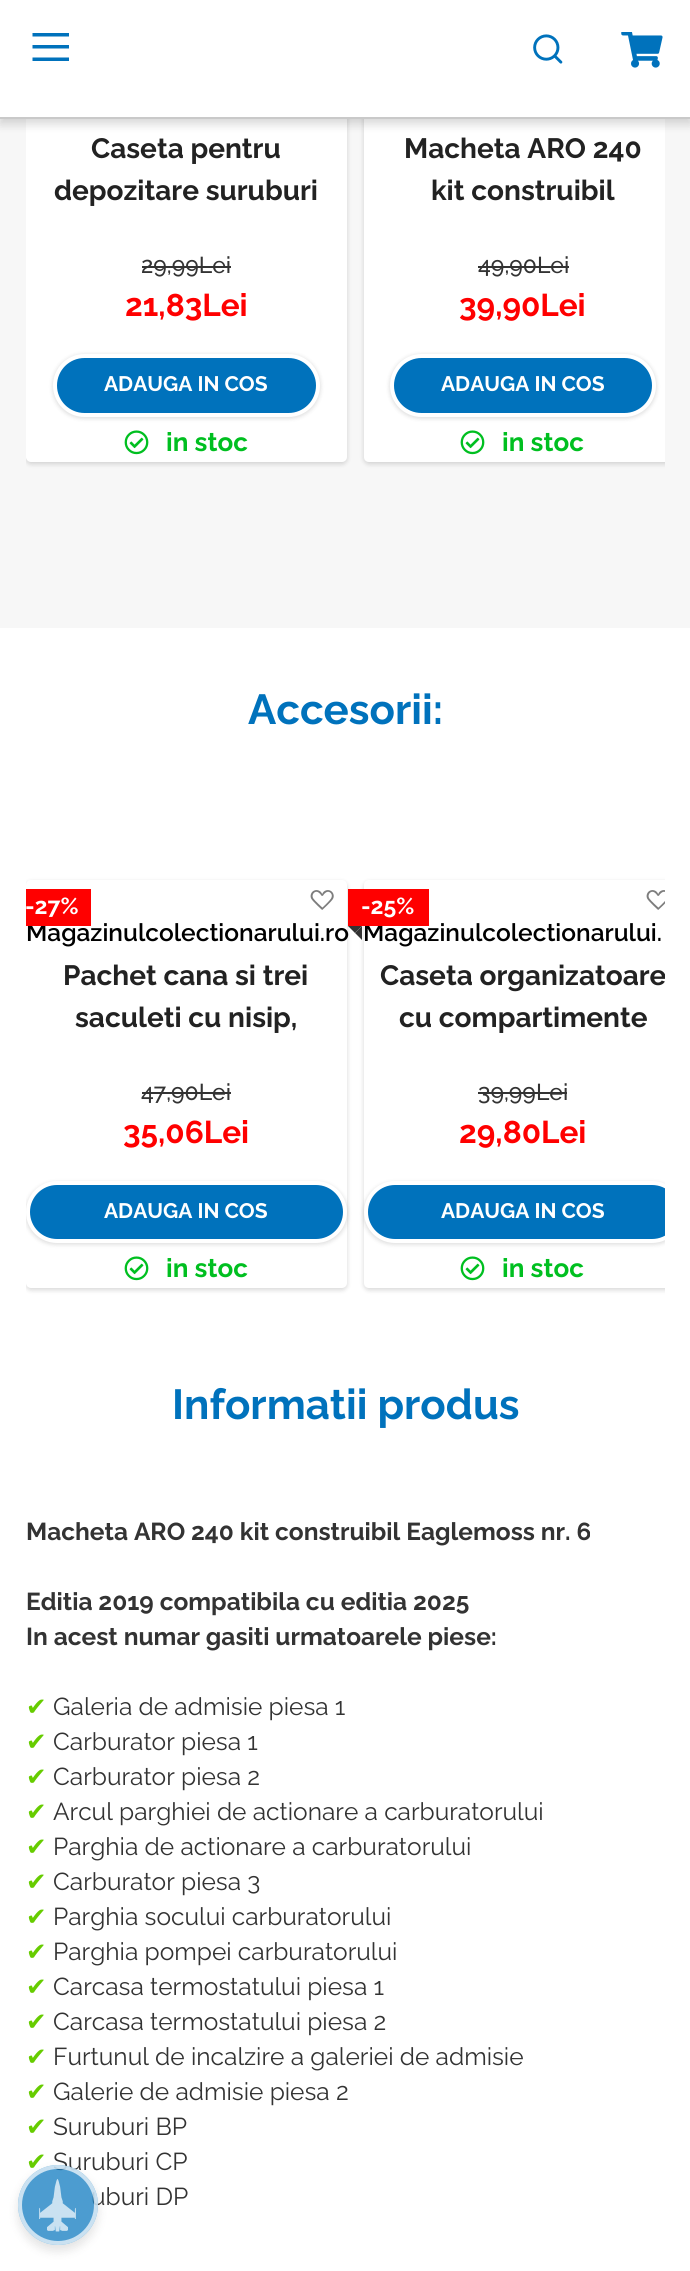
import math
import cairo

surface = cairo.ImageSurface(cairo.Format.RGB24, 690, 2271)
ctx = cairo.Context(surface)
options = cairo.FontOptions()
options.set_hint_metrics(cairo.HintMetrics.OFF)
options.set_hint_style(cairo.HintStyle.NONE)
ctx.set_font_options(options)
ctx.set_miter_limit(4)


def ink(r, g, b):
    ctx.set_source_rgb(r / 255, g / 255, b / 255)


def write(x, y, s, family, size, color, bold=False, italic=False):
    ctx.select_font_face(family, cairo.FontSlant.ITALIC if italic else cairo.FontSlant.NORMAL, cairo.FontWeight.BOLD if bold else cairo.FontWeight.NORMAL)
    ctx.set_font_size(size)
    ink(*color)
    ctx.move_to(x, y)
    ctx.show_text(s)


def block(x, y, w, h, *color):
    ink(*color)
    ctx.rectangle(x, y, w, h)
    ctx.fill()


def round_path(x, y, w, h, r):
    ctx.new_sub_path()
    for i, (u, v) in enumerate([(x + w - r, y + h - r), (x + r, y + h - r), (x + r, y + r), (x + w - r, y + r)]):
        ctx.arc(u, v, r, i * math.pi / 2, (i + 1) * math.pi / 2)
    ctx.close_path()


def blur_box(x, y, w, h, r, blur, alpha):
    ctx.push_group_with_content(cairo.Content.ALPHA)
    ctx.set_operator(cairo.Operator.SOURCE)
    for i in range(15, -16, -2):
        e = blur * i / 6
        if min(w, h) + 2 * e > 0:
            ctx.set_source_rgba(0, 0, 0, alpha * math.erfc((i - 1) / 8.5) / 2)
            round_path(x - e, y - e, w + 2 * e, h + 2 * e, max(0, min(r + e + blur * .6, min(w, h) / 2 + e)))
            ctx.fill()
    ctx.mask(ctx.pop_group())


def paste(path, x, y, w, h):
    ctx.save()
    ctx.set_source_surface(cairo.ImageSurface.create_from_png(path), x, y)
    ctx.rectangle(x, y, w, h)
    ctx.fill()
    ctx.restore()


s1 = dict(family="Raleway Thin", size=28, color=(34, 34, 34))
s2 = dict(family="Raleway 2 Thin", size=23, color=(51, 51, 51))
s3 = dict(family="Raleway Thin", size=31.5, color=(255, 0, 0))
s4 = dict(family="Raleway Thin", size=21, color=(255, 255, 255))
s5 = dict(family="Raleway Thin", size=26, color=(0, 191, 32))
s6 = dict(family="Raleway Thin", size=42, color=(0, 114, 188))
s7 = dict(family="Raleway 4 Thin", size=24.5, color=(0, 0, 0))
s8 = dict(family="Raleway Thin", size=23, color=(255, 255, 255))
s9 = dict(family="Raleway Thin", size=24.5, color=(51, 51, 51))
s10 = dict(family="DejaVu Sans", size=24.5, color=(102, 204, 0))
s11 = dict(family="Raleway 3 Thin", size=24.5, color=(51, 51, 51))

ink(247, 247, 247)
ctx.paint()
ctx.save()
ctx.rectangle(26, 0, 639, 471)
ctx.clip()
ink(0, 0, 0)
blur_box(26, -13, 321, 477, 5, 2.5, 0.16)
ctx.restore()
ink(255, 255, 255)
round_path(26, -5, 321, 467, 5)
ctx.fill()
ctx.save()
ctx.rectangle(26, 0, 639, 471)
ctx.clip()
ink(0, 0, 0)
blur_box(364, -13, 319, 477, 5, 2.5, 0.16)
ctx.restore()
ctx.new_path()
ctx.move_to(369, -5)
ctx.line_to(665, -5)
ctx.line_to(665, 462)
ctx.line_to(369, 462)
ctx.curve_to(366, 462, 364, 460, 364, 457)
ctx.line_to(364, 0)
ctx.curve_to(364, -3, 366, -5, 369, -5)
ctx.close_path()
ctx.fill()
ink(0, 0, 0)
blur_box(0, 5, 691, 119, 0, 5, 0.16)
block(0, 0, 690, 117, 255, 255, 255)
block(0, 117, 690, 2, 201, 201, 201)
ink(0, 114, 188)
ctx.new_path()
ctx.move_to(32.5, 33)
ctx.line_to(32.5, 36.5)
ctx.line_to(69, 36.5)
ctx.line_to(69, 33)
ctx.close_path()
ctx.move_to(32.5, 48.5)
ctx.line_to(69, 48.5)
ctx.line_to(69, 45)
ctx.line_to(32.5, 45)
ctx.close_path()
ctx.move_to(32.5, 61)
ctx.line_to(69, 61)
ctx.line_to(69, 57.5)
ctx.line_to(32.5, 57.5)
ctx.close_path()
ctx.fill()
paste("pic1.png", 533, 34, 30, 30)
paste("pic2.png", 621, 32, 42, 36)
write(91, 158, "Caseta pentru", **s1)
write(54, 200, "depozitare suruburi", **s1)
write(141, 273, "29,99Lei", **s2)
block(142, 266, 89, 2, 51, 51, 51)
write(125, 316, "21,83Lei", **s3)
ink(0, 0, 0)
blur_box(53, 355, 267, 63, 31.5, 2.5, 0.16)
ink(0, 114, 188)
round_path(55, 356, 263, 59, 29.5)
ctx.fill_preserve()
ink(255, 255, 255)
ctx.set_line_width(4)
ctx.stroke()
write(104, 391, "ADAUGA IN COS", **s4)
paste("pic3.png", 124, 430, 25, 25)
write(166, 451, "in stoc", **s5)
write(404, 158, "Macheta ARO 240", **s1)
write(431, 200, "kit construibil", **s1)
write(478, 273, "49,90Lei", **s2)
block(478, 266, 91, 2, 51, 51, 51)
write(459, 316, "39,90Lei", **s3)
ink(0, 0, 0)
blur_box(390, 355, 266, 63, 31.5, 2.5, 0.16)
ink(0, 114, 188)
round_path(392, 356, 262, 59, 29.5)
ctx.fill_preserve()
ink(255, 255, 255)
ctx.stroke()
write(441, 391, "ADAUGA IN COS", **s4)
paste("pic3.png", 460, 430, 25, 25)
write(502, 451, "in stoc", **s5)
block(0, 628, 690, 1643, 255, 255, 255)
write(248, 724, "Accesorii:", **s6)
ctx.save()
ctx.rectangle(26, 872, 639, 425)
ctx.clip()
ink(0, 0, 0)
blur_box(26, 882, 321, 408, 5, 2.5, 0.16)
ctx.restore()
ink(255, 255, 255)
round_path(26, 880, 321, 408, 5)
ctx.fill()
write(26, 941, "Magazinulcolectionarului.ro", **s7)
block(26, 889, 65, 37, 255, 0, 0)
ctx.save()
ctx.rectangle(26, 872, 639, 425)
ctx.clip()
write(25, 914, "-27%", **s8)
ctx.restore()
write(63, 985, "Pachet cana si trei", **s1)
write(75, 1027, "saculeti cu nisip,", **s1)
write(141, 1100, "47,90Lei", **s2)
block(142, 1092, 89, 2, 51, 51, 51)
write(123, 1143, "35,06Lei", **s3)
paste("pic4.png", 310, 890, 24, 20)
ctx.save()
ctx.rectangle(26, 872, 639, 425)
ctx.clip()
ink(0, 0, 0)
blur_box(26, 1183, 321, 61, 30.5, 2.5, 0.16)
ctx.restore()
ink(0, 114, 188)
round_path(28, 1183, 317, 58, 29)
ctx.fill_preserve()
ink(255, 255, 255)
ctx.stroke()
write(104, 1218, "ADAUGA IN COS", **s4)
paste("pic3.png", 124, 1256, 25, 25)
write(166, 1277, "in stoc", **s5)
ctx.save()
ctx.rectangle(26, 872, 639, 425)
ctx.clip()
ink(0, 0, 0)
blur_box(364, 882, 319, 408, 5, 2.5, 0.16)
ctx.restore()
ink(255, 255, 255)
ctx.new_path()
ctx.move_to(369, 880)
ctx.line_to(665, 880)
ctx.line_to(665, 1288)
ctx.line_to(369, 1288)
ctx.curve_to(366, 1288, 364, 1286, 364, 1283)
ctx.line_to(364, 885)
ctx.curve_to(364, 882, 366, 880, 369, 880)
ctx.close_path()
ctx.fill()
write(363, 941, "Magazinulcolectionarului.", **s7)
block(348, 889, 81, 37, 255, 0, 0)
write(361, 914, "-25%", **s8)
ink(51, 51, 51)
ctx.new_path()
ctx.move_to(348, 926)
ctx.line_to(362, 926)
ctx.line_to(355, 933)
ctx.close_path()
ctx.fill()
ctx.new_path()
ctx.move_to(362, 926)
ctx.line_to(362, 940)
ctx.line_to(355, 933)
ctx.close_path()
ctx.fill()
ctx.save()
ctx.rectangle(364, 956, 301, 92)
ctx.clip()
write(380, 985, "Caseta organizatoare", **s1)
ctx.restore()
write(399, 1027, "cu compartimente", **s1)
write(478, 1100, "39,99Lei", **s2)
block(478, 1092, 89, 2, 51, 51, 51)
write(459, 1143, "29,80Lei", **s3)
paste("pic5.png", 646, 890, 19, 20)
ctx.save()
ctx.rectangle(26, 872, 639, 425)
ctx.clip()
ink(0, 0, 0)
blur_box(364, 1183, 319, 61, 30.5, 2.5, 0.16)
ctx.restore()
ctx.save()
ctx.rectangle(26, 872, 639, 425)
ctx.clip()
ink(0, 114, 188)
round_path(366, 1183, 315, 58, 29)
ctx.fill_preserve()
ink(255, 255, 255)
ctx.stroke()
ctx.restore()
write(441, 1218, "ADAUGA IN COS", **s4)
paste("pic3.png", 460, 1256, 25, 25)
write(502, 1277, "in stoc", **s5)
write(172, 1419, "Informatii produs", **s6)
write(26, 1540, "Macheta ARO 240 kit construibil Eaglemoss nr. 6", **s9)
write(26, 1610, "Editia 2019 compatibila cu editia 2025", **s9)
write(26, 1645, "In acest numar gasiti urmatoarele piese:", **s9)
write(26, 1715, "✔", **s10)
write(53, 1715, "Galeria de admisie piesa 1", **s11)
write(26, 1750, "✔", **s10)
write(53, 1750, "Carburator piesa 1", **s11)
write(26, 1785, "✔", **s10)
write(53, 1785, "Carburator piesa 2", **s11)
write(26, 1820, "✔", **s10)
write(53, 1820, "Arcul parghiei de actionare a carburatorului", **s11)
write(26, 1855, "✔", **s10)
write(53, 1855, "Parghia de actionare a carburatorului", **s11)
write(26, 1890, "✔", **s10)
write(53, 1890, "Carburator piesa 3", **s11)
write(26, 1925, "✔", **s10)
write(53, 1925, "Parghia socului carburatorului", **s11)
write(26, 1960, "✔", **s10)
write(53, 1960, "Parghia pompei carburatorului", **s11)
write(26, 1995, "✔", **s10)
write(53, 1995, "Carcasa termostatului piesa 1", **s11)
write(26, 2030, "✔", **s10)
write(53, 2030, "Carcasa termostatului piesa 2", **s11)
write(26, 2065, "✔", **s10)
write(53, 2065, "Furtunul de incalzire a galeriei de admisie", **s11)
write(26, 2100, "✔", **s10)
write(53, 2100, "Galerie de admisie piesa 2", **s11)
write(26, 2135, "✔", **s10)
write(53, 2135, "Suruburi BP", **s11)
write(26, 2170, "✔", **s10)
write(53, 2170, "Suruburi CP", **s11)
write(91, 2205, "uburi DP", **s11)
ctx.save()
ctx.set_fill_rule(cairo.FillRule.EVEN_ODD)
ctx.new_path()
ctx.move_to(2, 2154)
ctx.line_to(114, 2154)
ctx.line_to(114, 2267)
ctx.line_to(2, 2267)
ctx.close_path()
ctx.move_to(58, 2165)
ctx.curve_to(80, 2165, 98, 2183, 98, 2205)
ctx.curve_to(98, 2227, 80, 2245, 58, 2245)
ctx.curve_to(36, 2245, 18, 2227, 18, 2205)
ctx.curve_to(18, 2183, 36, 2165, 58, 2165)
ctx.close_path()
ctx.clip()
ink(0, 0, 0)
blur_box(18, 2170, 80, 81, 40, 5, 0.11)
ctx.restore()
ctx.set_source_rgba(0, 0.447, 0.737, 0.7)
ctx.arc(58, 2205, 40, 0, 2 * math.pi)
ctx.fill()
ctx.arc(58, 2205, 38, 0, 2 * math.pi)
ctx.set_source_rgba(1, 1, 1, 0.7)
ctx.stroke()
paste("pic6.png", 39, 2179, 37, 53)
surface.write_to_png("screenshot.png")
